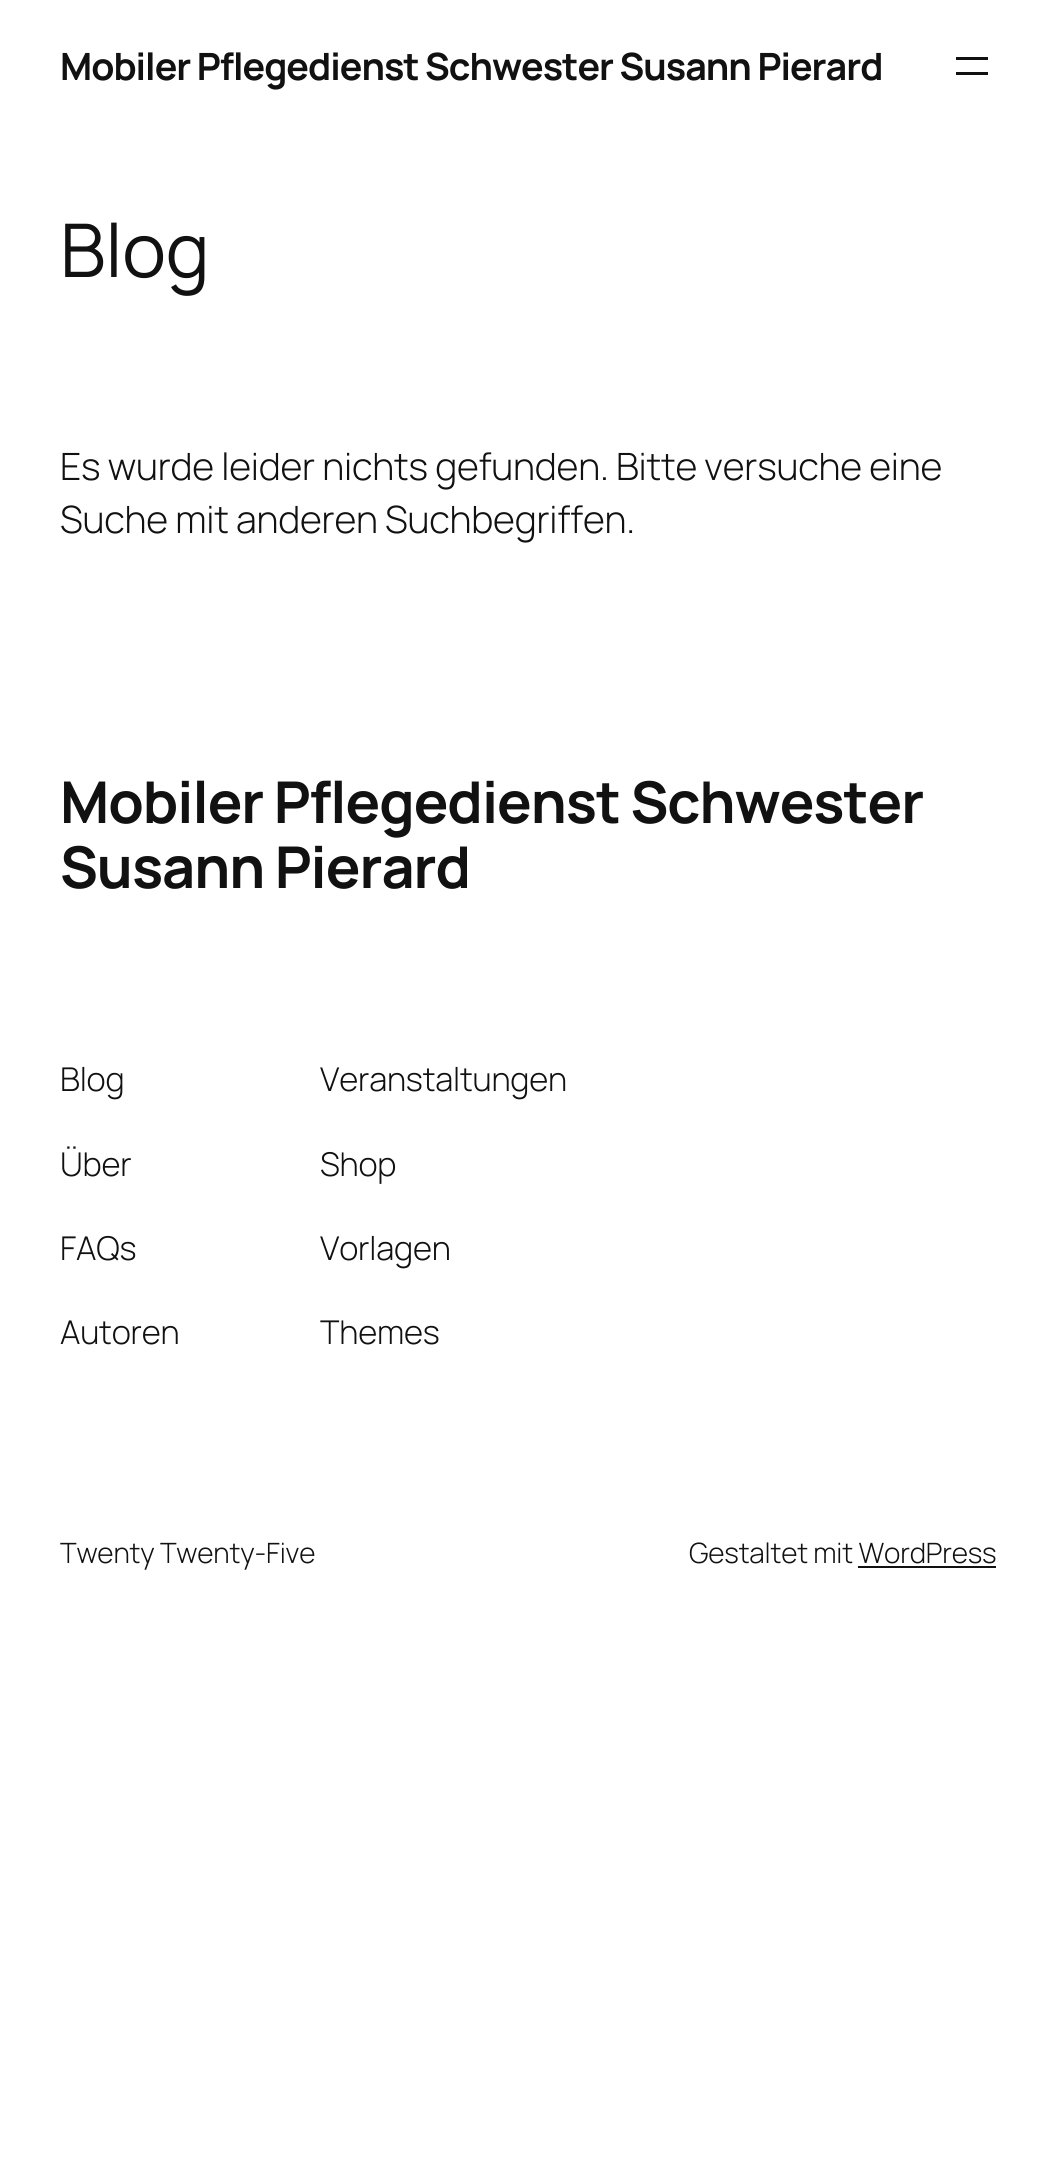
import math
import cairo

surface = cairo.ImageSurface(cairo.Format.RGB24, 1056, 2169)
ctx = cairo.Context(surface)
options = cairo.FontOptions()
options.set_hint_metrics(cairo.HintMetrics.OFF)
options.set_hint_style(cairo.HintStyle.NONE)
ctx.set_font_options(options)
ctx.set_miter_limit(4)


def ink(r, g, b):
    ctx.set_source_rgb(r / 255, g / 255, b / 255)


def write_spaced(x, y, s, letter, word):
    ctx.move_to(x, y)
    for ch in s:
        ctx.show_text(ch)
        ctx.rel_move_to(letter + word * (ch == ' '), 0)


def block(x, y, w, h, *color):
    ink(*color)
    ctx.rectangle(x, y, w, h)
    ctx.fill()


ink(255, 255, 255)
ctx.paint()
ctx.select_font_face("Manrope", cairo.FontSlant.NORMAL, cairo.FontWeight.BOLD)
ctx.set_font_size(37.6)
ink(17, 17, 17)
write_spaced(60, 80, "Mobiler Pflegedienst Schwester Susann Pierard", -1, 0)
block(956, 57, 32, 3, 17, 17, 17)
block(956, 72, 32, 3, 17, 17, 17)
ctx.select_font_face("Manrope")
ctx.set_font_size(74)
write_spaced(60, 277, "Blog", -0.2, 0)
ctx.select_font_face("Manrope Light")
ctx.set_font_size(37.6)
write_spaced(60, 480, "Es wurde leider nichts gefunden. Bitte versuche eine", -0.2, 0)
write_spaced(60, 533, "Suche mit anderen Suchbegriffen.", -0.2, 0)
ctx.select_font_face("Manrope", cairo.FontSlant.NORMAL, cairo.FontWeight.BOLD)
ctx.set_font_size(57.6)
write_spaced(60, 823, "Mobiler Pflegedienst Schwester", -1, 0)
write_spaced(60, 888, "Susann Pierard", -1, 0)
ctx.select_font_face("Manrope Light")
ctx.set_font_size(32.75)
write_spaced(60, 1091, "Blog", -0.2, 0)
write_spaced(60, 1176, "Über", -0.2, 0)
write_spaced(60, 1260, "FAQs", -0.2, 0)
write_spaced(60, 1344, "Autoren", -0.2, 0)
write_spaced(320, 1091, "Veranstaltungen", -0.2, 0)
write_spaced(320, 1176, "Shop", -0.2, 0)
write_spaced(320, 1260, "Vorlagen", -0.2, 0)
write_spaced(320, 1344, "Themes", -0.2, 0)
ctx.set_font_size(28)
write_spaced(60, 1563, "Twenty Twenty-Five", -0.2, 0)
write_spaced(689, 1563, "Gestaltet mit WordPress", -0.2, 0)
block(858, 1566, 138, 2, 17, 17, 17)
surface.write_to_png("screenshot.png")
